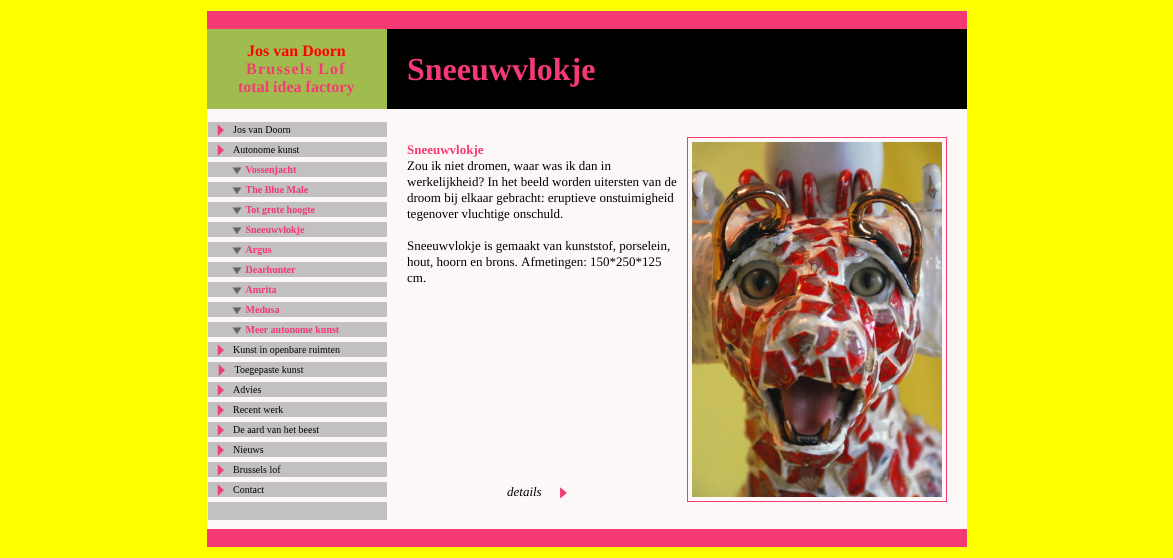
import math
import cairo

surface = cairo.ImageSurface(cairo.Format.RGB24, 1173, 558)
ctx = cairo.Context(surface)
options = cairo.FontOptions()
options.set_hint_metrics(cairo.HintMetrics.OFF)
options.set_hint_style(cairo.HintStyle.NONE)
ctx.set_font_options(options)
ctx.set_miter_limit(4)


def ink(r, g, b):
    ctx.set_source_rgb(r / 255, g / 255, b / 255)


def write(x, y, s, family, size, color, bold=False, italic=False):
    ctx.select_font_face(family, cairo.FontSlant.ITALIC if italic else cairo.FontSlant.NORMAL, cairo.FontWeight.BOLD if bold else cairo.FontWeight.NORMAL)
    ctx.set_font_size(size)
    ink(*color)
    ctx.move_to(x, y)
    ctx.show_text(s)


def write_spaced(x, y, s, letter, word):
    ctx.move_to(x, y)
    for ch in s:
        ctx.show_text(ch)
        ctx.rel_move_to(letter + word * (ch == ' '), 0)


def block(x, y, w, h, *color):
    ink(*color)
    ctx.rectangle(x, y, w, h)
    ctx.fill()


def paste(path, x, y, w, h):
    ctx.save()
    ctx.set_source_surface(cairo.ImageSurface.create_from_png(path), x, y)
    ctx.rectangle(x, y, w, h)
    ctx.fill()
    ctx.restore()


s1 = dict(family="Liberation Serif", size=16, color=(255, 0, 0), bold=True)
s2 = dict(family="Liberation Serif", size=16, color=(245, 57, 116), bold=True)
s3 = dict(family="Liberation Serif", size=32, color=(245, 57, 116), bold=True)
s4 = dict(family="Liberation Serif", size=13, color=(245, 57, 116), bold=True)
s5 = dict(family="Liberation Serif", size=13, color=(0, 0, 0))
s6 = dict(family="Liberation Serif", size=13, color=(0, 0, 0), italic=True)

ink(255, 255, 0)
ctx.paint()
block(207, 11, 760, 18, 245, 57, 116)
block(207, 29, 180, 80, 160, 188, 78)
write(247, 56, "Jos van Doorn", **s1)
ink(245, 57, 116)
write_spaced(246, 74, "Brussels Lof", 1.25, 0)
write(238, 92, "total idea factory", **s2)
block(387, 29, 580, 80, 0, 0, 0)
write(407, 80, "Sneeuwvlokje", **s3)
block(387, 109, 580, 420, 252, 248, 248)
paste("pic1.png", 207, 109, 180, 420)
write(407, 154, "Sneeuwvlokje", **s4)
write(407, 170, "Zou ik niet dromen, waar was ik dan in", **s5)
write(407, 186, "werkelijkheid? In het beeld worden uitersten van de", **s5)
write(407, 202, "droom bij elkaar gebracht: eruptieve onstuimigheid", **s5)
write(407, 218, "tegenover vluchtige onschuld.", **s5)
write(407, 250, "Sneeuwvlokje is gemaakt van kunststof, porselein,", **s5)
write(407, 266, "hout, hoorn en brons. Afmetingen: 150*250*125", **s5)
write(407, 282, "cm.", **s5)
block(687, 137, 260, 1, 245, 57, 116)
block(946, 137, 1, 365, 245, 57, 116)
block(687, 501, 260, 1, 245, 57, 116)
block(687, 137, 1, 365, 245, 57, 116)
paste("pic2.png", 692, 142, 250, 355)
write(507, 496, "details", **s6)
paste("pic3.png", 559, 485, 8, 14)
block(207, 529, 760, 18, 245, 57, 116)
surface.write_to_png("screenshot.png")
